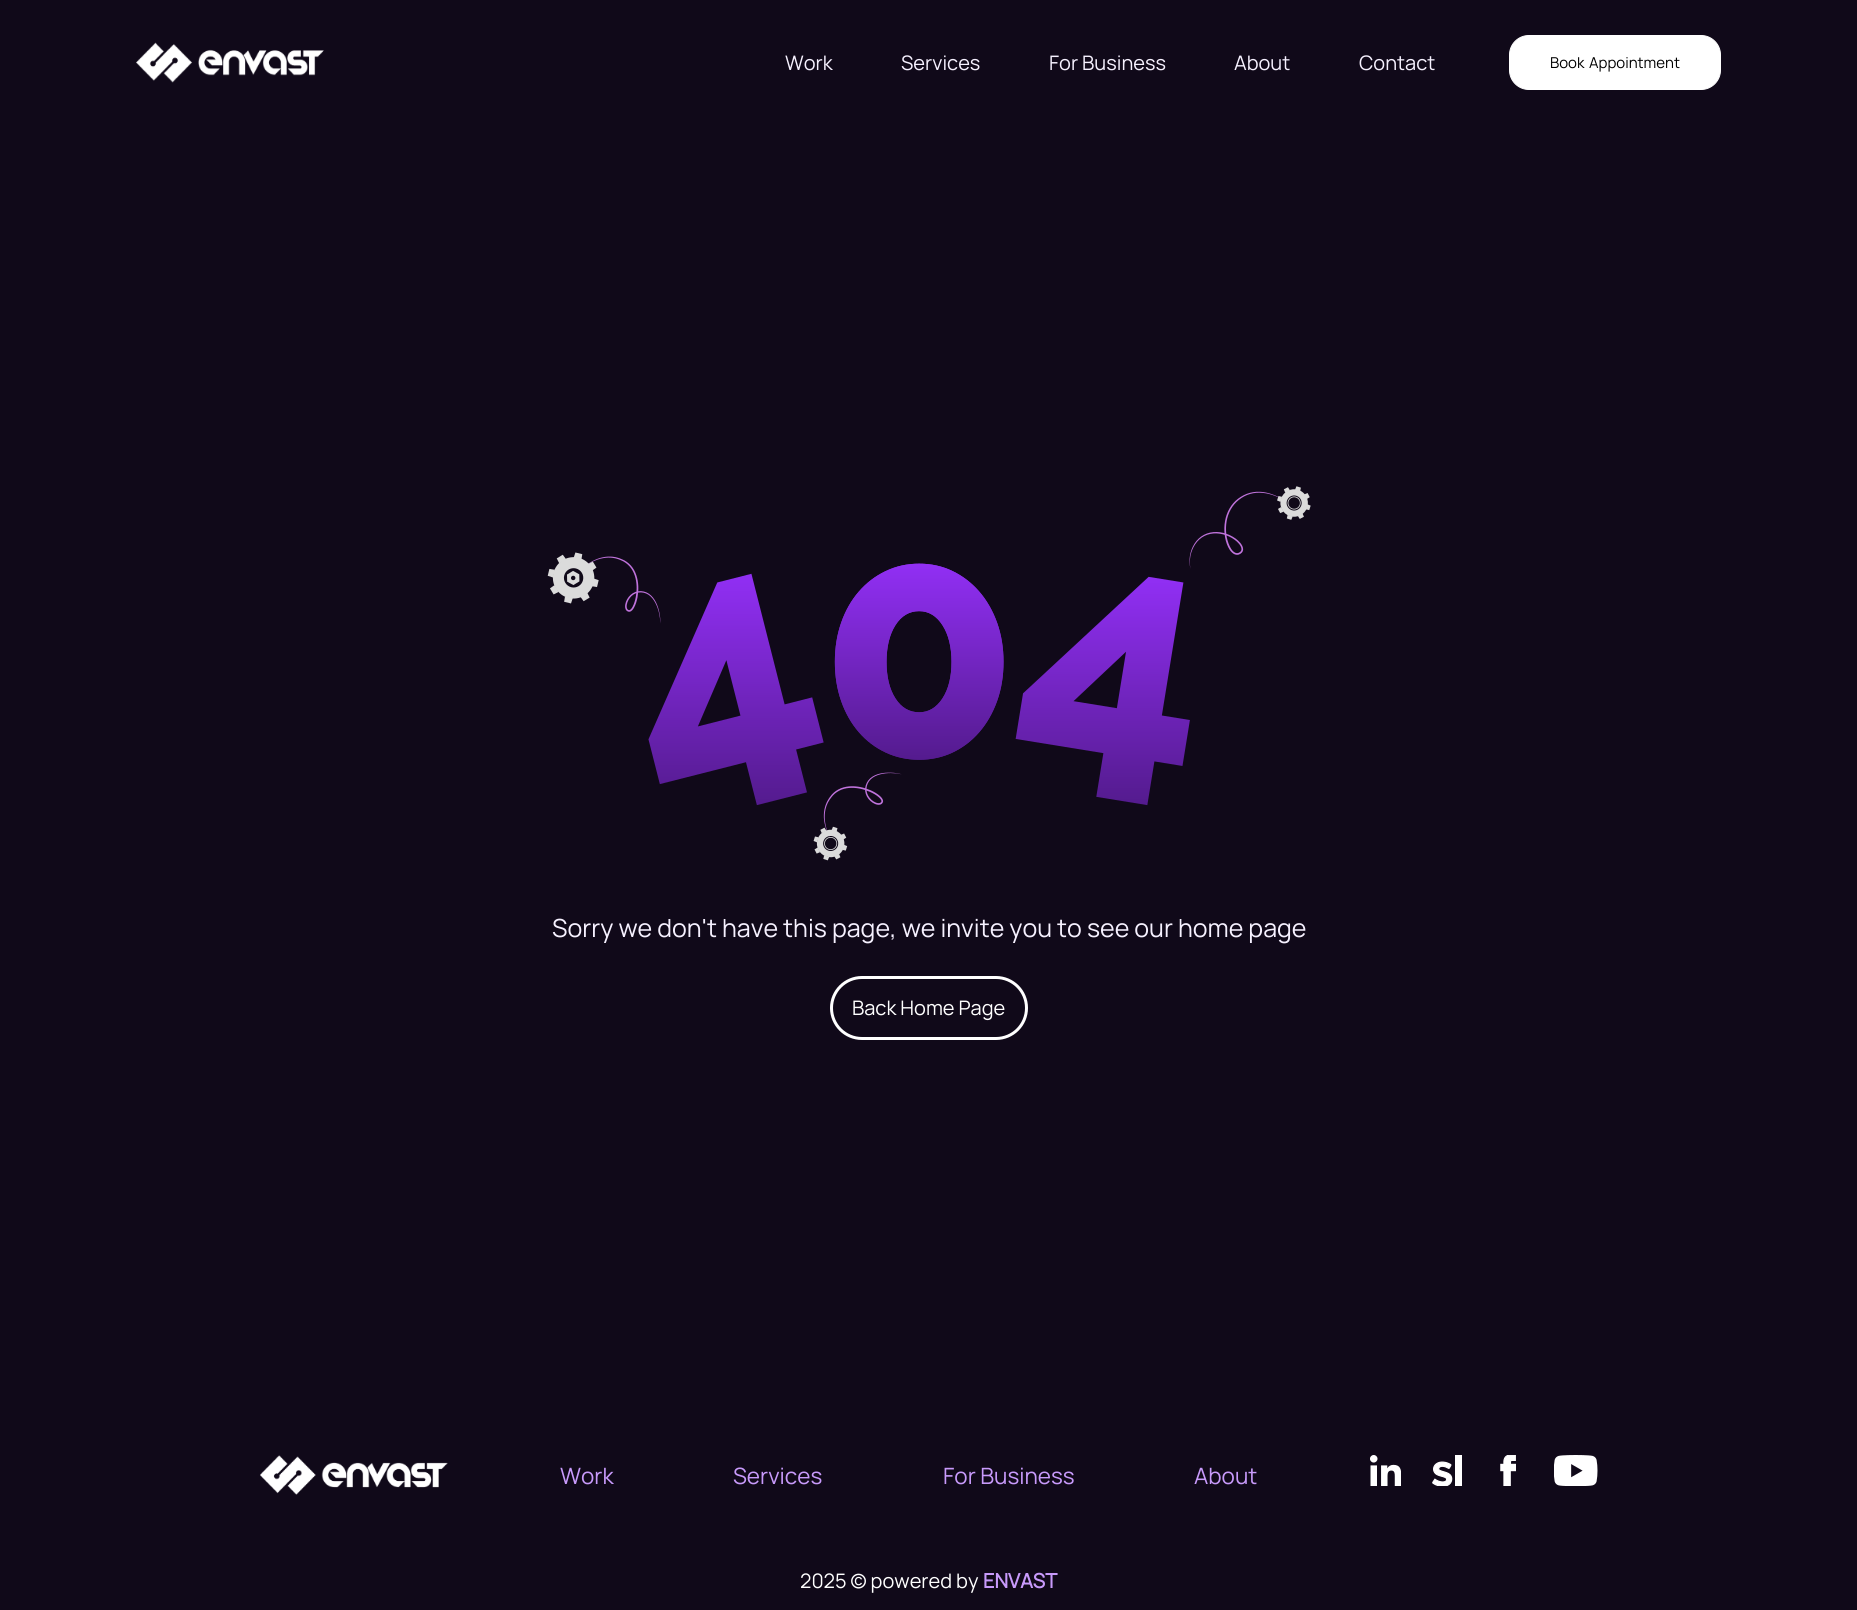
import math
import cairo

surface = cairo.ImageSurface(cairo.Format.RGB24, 1857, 1610)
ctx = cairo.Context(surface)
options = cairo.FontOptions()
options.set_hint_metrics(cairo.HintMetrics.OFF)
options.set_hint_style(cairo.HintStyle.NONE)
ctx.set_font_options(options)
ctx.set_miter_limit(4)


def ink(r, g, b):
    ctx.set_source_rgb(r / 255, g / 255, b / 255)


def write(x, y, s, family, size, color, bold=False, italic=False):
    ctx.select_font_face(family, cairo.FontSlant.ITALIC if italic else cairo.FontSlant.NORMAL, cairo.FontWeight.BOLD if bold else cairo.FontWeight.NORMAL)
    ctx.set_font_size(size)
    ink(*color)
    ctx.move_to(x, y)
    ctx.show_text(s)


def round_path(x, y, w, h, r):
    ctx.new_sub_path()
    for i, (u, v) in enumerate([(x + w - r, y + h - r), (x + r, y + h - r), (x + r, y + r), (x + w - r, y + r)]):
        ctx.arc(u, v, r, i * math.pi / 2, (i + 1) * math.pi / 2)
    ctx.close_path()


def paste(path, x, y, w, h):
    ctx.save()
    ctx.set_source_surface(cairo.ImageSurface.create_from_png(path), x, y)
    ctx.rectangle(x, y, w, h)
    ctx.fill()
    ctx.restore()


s1 = dict(family="Manrope ExtraLight", size=20, color=(246, 241, 255))
s2 = dict(family="Manrope ExtraLight", size=15, color=(0, 0, 0))
s3 = dict(family="Manrope ExtraLight", size=25, color=(246, 241, 255))
s4 = dict(family="Manrope ExtraLight", size=20, color=(255, 255, 255))
s5 = dict(family="Manrope ExtraLight", size=22.5, color=(200, 154, 251))
s6 = dict(family="Manrope", size=20, color=(200, 154, 251), bold=True)

ink(16, 9, 25)
ctx.paint()
paste("pic1.png", 136, 42, 188, 41)
write(785, 70, "Work", **s1)
write(901, 70, "Services", **s1)
write(1049, 70, "For Business", **s1)
write(1234, 70, "About", **s1)
write(1359, 70, "Contact", **s1)
ink(255, 255, 255)
round_path(1509.5, 35.5, 211, 54, 19.5)
ctx.fill_preserve()
ctx.set_line_width(1)
ctx.stroke()
write(1550, 68, "Book", **s2)
write(1589, 68, "Appointment", **s2)
paste("pic2.png", 547, 486, 764, 375)
write(552, 937, "Sorry we don't have this page, we invite you to see our home page", **s3)
round_path(831.5, 977.5, 195, 61, 30.5)
ink(255, 255, 255)
ctx.set_line_width(3)
ctx.stroke()
write(852, 1015, "Back Home Page", **s4)
paste("pic3.png", 260, 1455, 188, 40)
write(560, 1484, "Work", **s5)
write(733, 1484, "Services", **s5)
write(943, 1484, "For Business", **s5)
write(1194, 1484, "About", **s5)
paste("pic4.png", 1370, 1455, 31, 31)
paste("pic5.png", 1432, 1455, 30, 31)
paste("pic6.png", 1500, 1455, 16, 31)
paste("pic7.png", 1554, 1455, 44, 31)
write(800, 1588, "2025 © powered by", **s4)
write(983, 1588, "ENVAST", **s6)
surface.write_to_png("screenshot.png")
